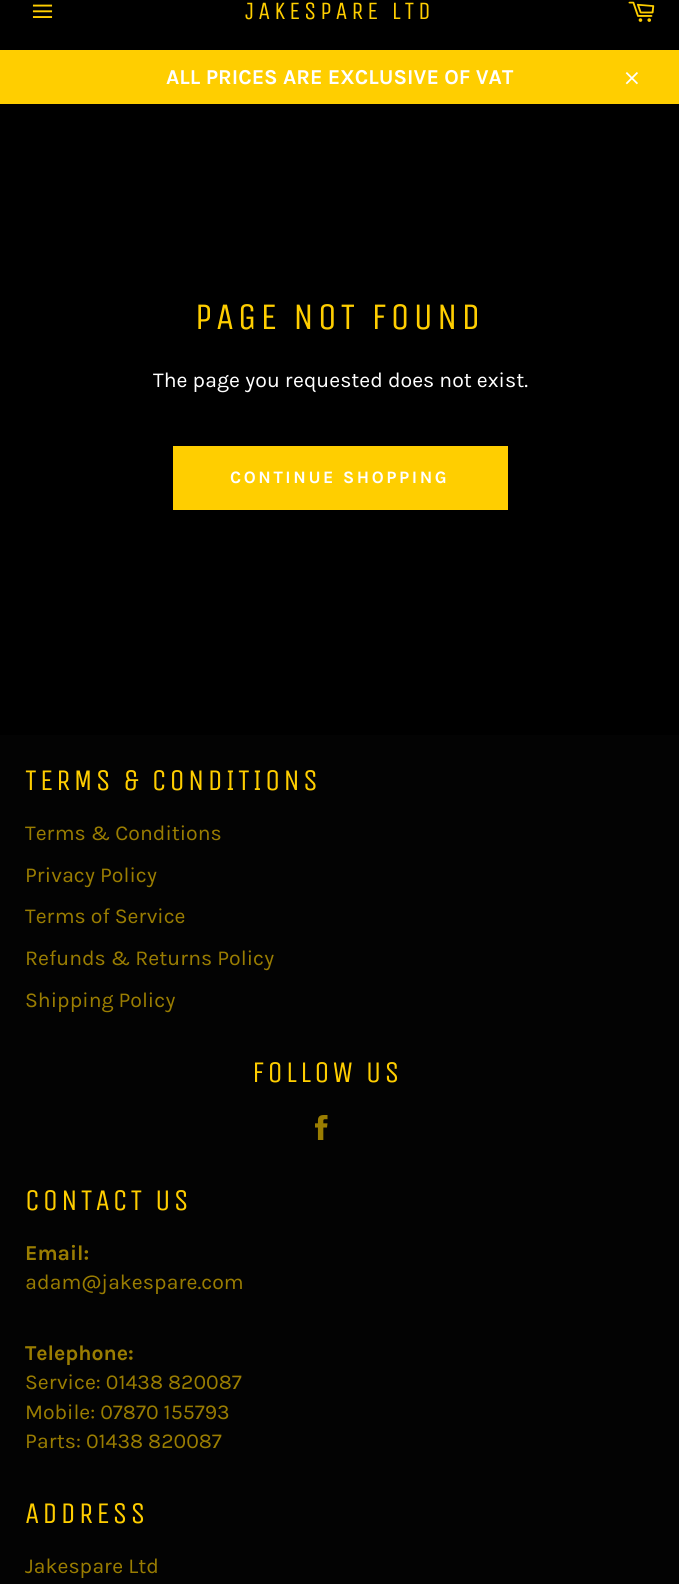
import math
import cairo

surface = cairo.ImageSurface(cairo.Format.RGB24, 679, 1584)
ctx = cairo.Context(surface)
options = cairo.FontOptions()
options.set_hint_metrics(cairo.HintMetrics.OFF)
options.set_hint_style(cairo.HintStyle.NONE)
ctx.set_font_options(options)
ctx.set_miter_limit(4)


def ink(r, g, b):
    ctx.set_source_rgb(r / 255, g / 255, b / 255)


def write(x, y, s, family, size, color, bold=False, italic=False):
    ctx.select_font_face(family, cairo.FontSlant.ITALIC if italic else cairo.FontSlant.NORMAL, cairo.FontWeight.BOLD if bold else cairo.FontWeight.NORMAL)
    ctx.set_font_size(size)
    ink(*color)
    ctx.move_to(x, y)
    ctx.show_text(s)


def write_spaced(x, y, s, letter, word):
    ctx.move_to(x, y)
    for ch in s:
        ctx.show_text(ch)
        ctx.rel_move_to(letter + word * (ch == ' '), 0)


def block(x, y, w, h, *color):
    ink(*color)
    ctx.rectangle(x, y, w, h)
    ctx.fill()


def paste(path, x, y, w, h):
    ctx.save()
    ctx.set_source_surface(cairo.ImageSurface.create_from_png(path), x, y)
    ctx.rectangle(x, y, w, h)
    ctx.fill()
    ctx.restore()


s1 = dict(family="Karla", size=21.25, color=(255, 255, 255), bold=True)
s2 = dict(family="Karla", size=21.25, color=(255, 255, 255))
s3 = dict(family="Karla", size=21.25, color=(154, 125, 1))
s4 = dict(family="Karla", size=21.25, color=(154, 125, 1), bold=True)

ink(0, 0, 0)
ctx.paint()
paste("pic1.png", 32, 4, 21, 14)
ctx.select_font_face("Unica One")
ctx.set_font_size(25)
ink(255, 206, 0)
write_spaced(245, 19, "JAKESPARE LTD", 3.75, 0)
paste("pic2.png", 628, 1, 27, 21)
block(0, 50, 679, 54, 255, 206, 0)
write(166, 84, "ALL PRICES ARE EXCLUSIVE OF VAT", **s1)
paste("pic3.png", 625, 72, 13, 13)
ctx.select_font_face("Unica One")
ctx.set_font_size(37.5)
ink(255, 206, 0)
write_spaced(195, 329, "PAGE NOT FOUND", 3.75, 0)
write(153, 387, "The page you requested does not exist.", **s2)
block(173, 446, 335, 64, 255, 206, 0)
ctx.select_font_face("Karla", cairo.FontSlant.NORMAL, cairo.FontWeight.BOLD)
ctx.set_font_size(17.5)
ink(255, 255, 255)
write_spaced(230, 483, "CONTINUE SHOPPING", 2.6, 0)
block(0, 735, 679, 849, 3, 3, 3)
ctx.select_font_face("Unica One")
ctx.set_font_size(30)
ink(255, 206, 0)
write_spaced(25, 790, "TERMS & CONDITIONS", 3, 0)
write(25, 840, "Terms & Conditions", **s3)
write(25, 882, "Privacy Policy", **s3)
write(25, 923, "Terms of Service", **s3)
write(25, 965, "Refunds & Returns Policy", **s3)
write(25, 1007, "Shipping Policy", **s3)
ctx.select_font_face("Unica One")
ctx.set_font_size(30)
ink(255, 206, 0)
write_spaced(252, 1082, "FOLLOW US", 3, 0)
paste("pic4.png", 315, 1115, 13, 25)
write_spaced(25, 1210, "CONTACT US", 3, 0)
write(25, 1260, "Email:", **s4)
write(25, 1289, "adam@jakespare.com", **s3)
write(25, 1360, "Telephone:", **s4)
write(25, 1389, "Service: 01438 820087", **s3)
write(25, 1419, "Mobile: 07870 155793", **s3)
write(25, 1448, "Parts: 01438 820087", **s3)
ctx.select_font_face("Unica One")
ctx.set_font_size(30)
ink(255, 206, 0)
write_spaced(25, 1523, "ADDRESS", 3, 0)
write(25, 1573, "Jakespare Ltd", **s3)
surface.write_to_png("screenshot.png")
